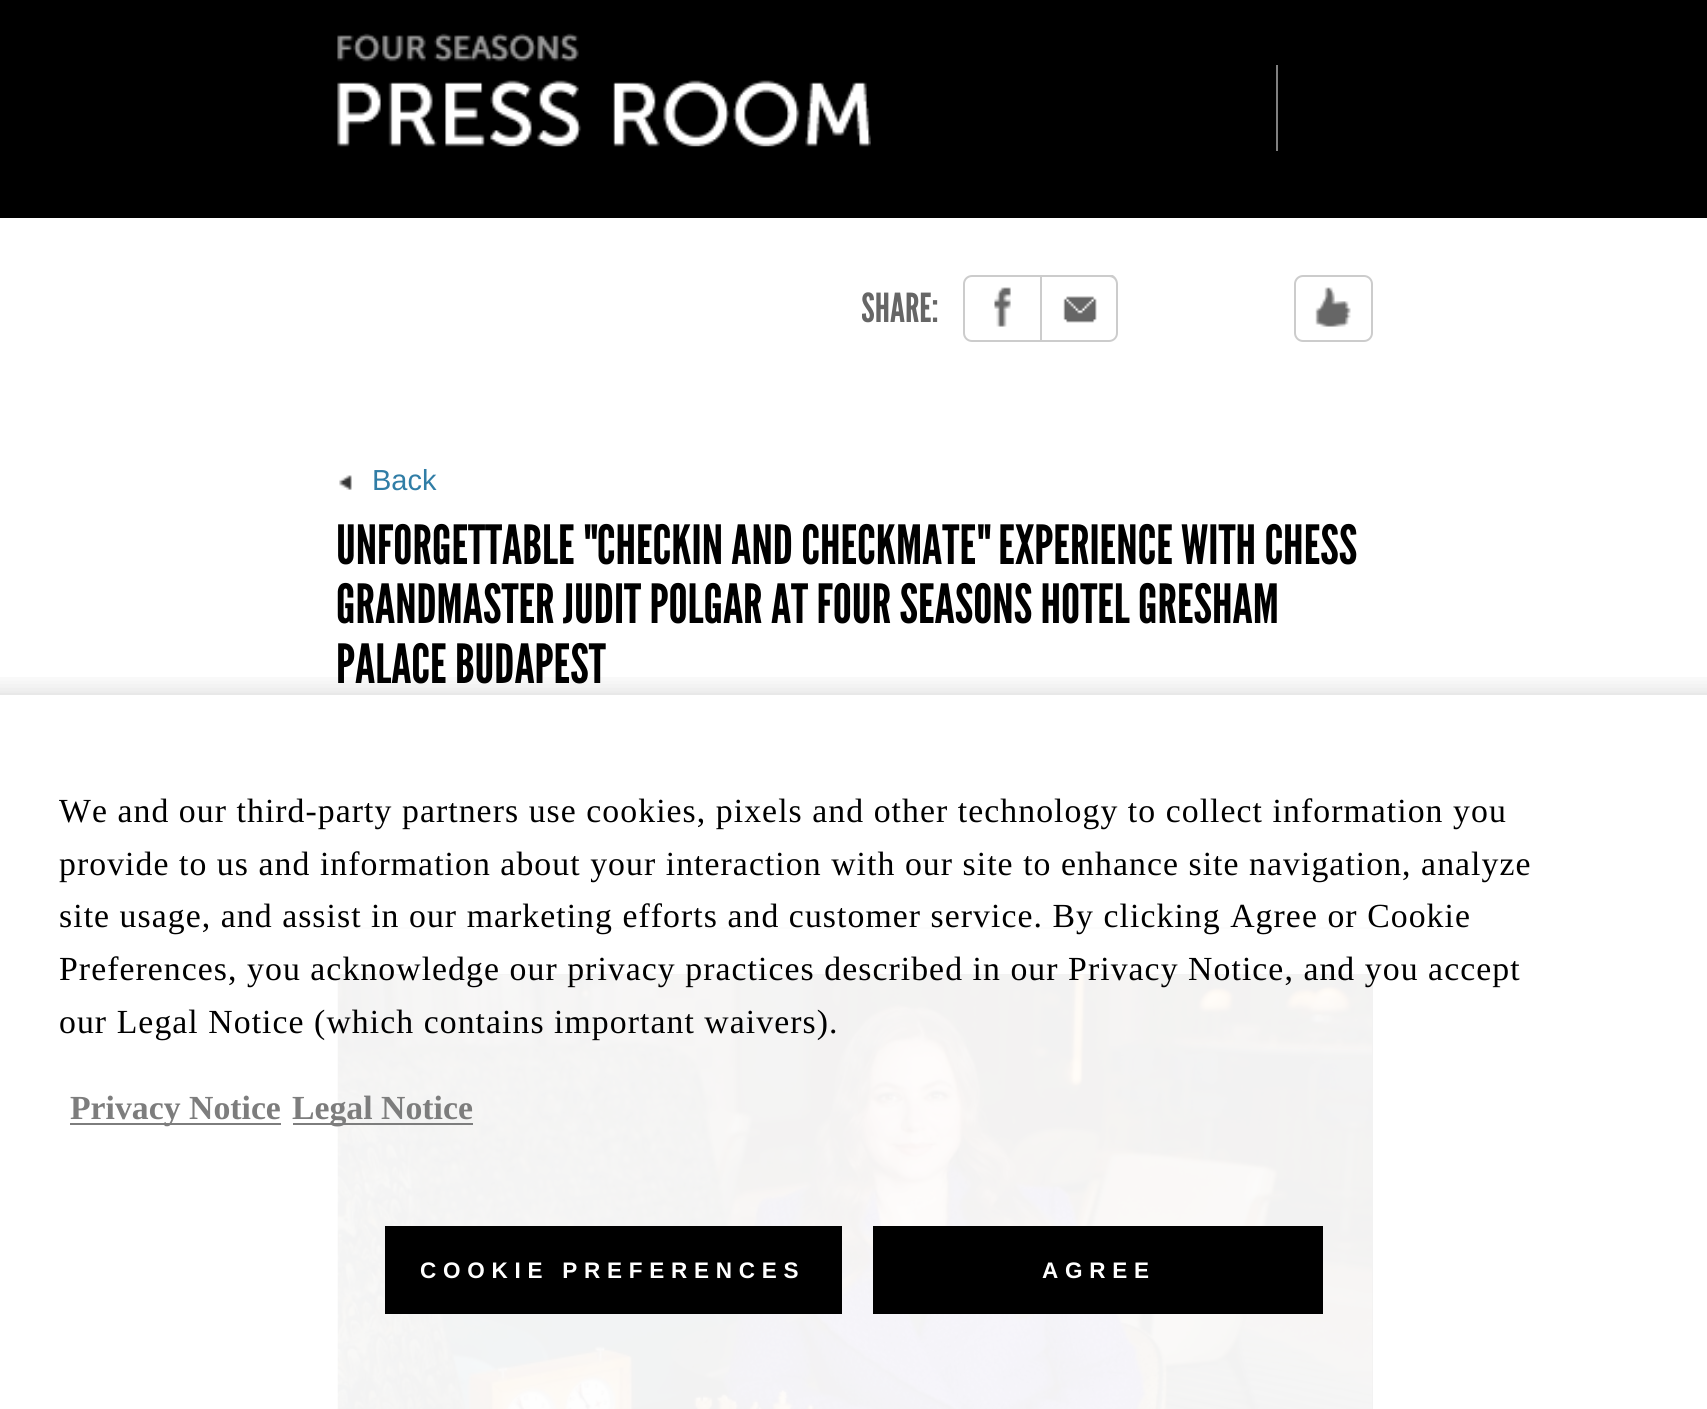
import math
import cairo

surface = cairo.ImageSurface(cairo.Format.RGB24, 1707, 1409)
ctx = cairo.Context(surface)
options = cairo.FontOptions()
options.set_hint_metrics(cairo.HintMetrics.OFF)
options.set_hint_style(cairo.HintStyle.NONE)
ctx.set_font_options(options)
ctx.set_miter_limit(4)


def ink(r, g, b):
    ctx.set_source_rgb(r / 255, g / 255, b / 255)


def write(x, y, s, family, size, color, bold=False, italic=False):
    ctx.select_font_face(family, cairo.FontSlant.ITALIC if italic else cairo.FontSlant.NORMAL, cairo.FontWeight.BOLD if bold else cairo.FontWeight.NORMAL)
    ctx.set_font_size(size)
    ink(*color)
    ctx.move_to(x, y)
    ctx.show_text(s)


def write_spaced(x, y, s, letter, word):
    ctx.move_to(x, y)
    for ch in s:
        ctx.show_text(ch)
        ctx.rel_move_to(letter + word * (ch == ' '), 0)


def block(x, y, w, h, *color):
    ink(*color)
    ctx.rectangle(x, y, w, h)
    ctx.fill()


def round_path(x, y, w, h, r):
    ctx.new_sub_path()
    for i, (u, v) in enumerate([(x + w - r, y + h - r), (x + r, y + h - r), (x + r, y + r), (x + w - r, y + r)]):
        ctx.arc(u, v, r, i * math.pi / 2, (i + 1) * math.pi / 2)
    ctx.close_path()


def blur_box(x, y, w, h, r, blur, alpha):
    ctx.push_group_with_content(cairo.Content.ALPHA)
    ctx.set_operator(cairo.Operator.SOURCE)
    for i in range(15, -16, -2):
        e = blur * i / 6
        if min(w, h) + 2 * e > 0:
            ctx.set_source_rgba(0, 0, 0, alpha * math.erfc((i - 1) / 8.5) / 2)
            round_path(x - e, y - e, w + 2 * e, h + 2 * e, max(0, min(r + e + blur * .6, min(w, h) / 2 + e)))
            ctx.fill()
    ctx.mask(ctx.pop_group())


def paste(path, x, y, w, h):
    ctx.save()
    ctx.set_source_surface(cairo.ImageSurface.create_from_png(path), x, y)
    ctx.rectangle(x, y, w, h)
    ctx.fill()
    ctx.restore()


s1 = dict(family="League Gothic", size=40, color=(102, 102, 102))
s2 = dict(family="Liberation Sans", size=29, color=(48, 125, 166))
s3 = dict(family="League Gothic", size=54, color=(0, 0, 0))
s4 = dict(family="Liberation Serif", size=33.75, color=(125, 125, 125), bold=True)

ink(255, 255, 255)
ctx.paint()
block(0, 0, 1707, 218, 0, 0, 0)
paste("pic1.png", 337, 33, 534, 114)
block(1276, 65, 2, 86, 128, 128, 128)
ctx.save()
ctx.rectangle(862, 275, 511, 67)
ctx.clip()
write(861, 322, "SHARE:", **s1)
ctx.restore()
paste("pic2.png", 994, 287, 17, 40)
ctx.new_path()
ctx.move_to(972, 276)
ctx.line_to(1041, 276)
ctx.line_to(1041, 341)
ctx.line_to(972, 341)
ctx.curve_to(967.5, 341, 964, 337.5, 964, 333)
ctx.line_to(964, 284)
ctx.curve_to(964, 279.5, 967.5, 276, 972, 276)
ctx.close_path()
ink(204, 204, 204)
ctx.stroke()
paste("pic3.png", 1063, 296, 34, 27)
ctx.save()
ctx.rectangle(963, 275, 315, 67)
ctx.clip()
ctx.set_fill_rule(cairo.FillRule.EVEN_ODD)
ctx.new_path()
ctx.move_to(1042, 274)
ctx.line_to(1109, 274)
ctx.curve_to(1114, 274, 1118, 279, 1118, 284)
ctx.line_to(1118, 333)
ctx.curve_to(1118, 338, 1114, 342, 1109, 342)
ctx.line_to(1042, 342)
ctx.close_path()
ctx.move_to(1042, 277)
ctx.line_to(1109, 277)
ctx.curve_to(1113, 277, 1116, 280, 1116, 284)
ctx.line_to(1116, 333)
ctx.curve_to(1116, 337, 1113, 340, 1109, 340)
ctx.line_to(1042, 340)
ctx.close_path()
ctx.fill()
ctx.restore()
round_path(1295, 276, 77, 65, 8)
ctx.stroke()
paste("pic4.png", 1315, 287, 36, 40)
paste("pic5.png", 339, 475, 13, 15)
write(372, 490, "Back", **s2)
write(336, 564, "UNFORGETTABLE \"CHECKIN AND CHECKMATE\" EXPERIENCE WITH CHESS", **s3)
write(336, 623, "GRANDMASTER JUDIT POLGAR AT FOUR SEASONS HOTEL GRESHAM", **s3)
write(336, 683, "PALACE BUDAPEST", **s3)
block(338, 927, 1035, 2, 252, 252, 252)
block(338, 974, 1035, 435, 242, 242, 242)
paste("pic6.png", 337, 974, 1036, 435)
ctx.save()
ctx.rectangle(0, 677, 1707, 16)
ctx.clip()
ink(0, 0, 0)
blur_box(-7, 686, 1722, 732, 0, 11, 0.1)
ctx.restore()
block(0, 693, 1707, 2, 232, 232, 232)
ctx.select_font_face("Liberation Serif")
ctx.set_font_size(33.75)
ink(0, 0, 0)
write_spaced(59, 822, "We and our third-party partners use cookies, pixels and other technology to collect information you", 1.06, 0)
write_spaced(59, 875, "provide to us and information about your interaction with our site to enhance site navigation, analyze", 1.06, 0)
write_spaced(59, 927, "site usage, and assist in our marketing efforts and customer service. By clicking Agree or Cookie", 1.06, 0)
write_spaced(59, 980, "Preferences, you acknowledge our privacy practices described in our Privacy Notice, and you accept", 1.06, 0)
write_spaced(59, 1033, "our Legal Notice (which contains important waivers).", 1.06, 0)
block(70, 1123, 211, 2, 125, 125, 125)
write(70, 1119, "Privacy Notice", **s4)
block(293, 1123, 180, 2, 125, 125, 125)
write(292, 1119, "Legal Notice", **s4)
block(385, 1226, 457, 88, 0, 0, 0)
ctx.select_font_face("Liberation Sans", cairo.FontSlant.NORMAL, cairo.FontWeight.BOLD)
ctx.set_font_size(22.5)
ink(255, 255, 255)
write_spaced(420, 1278, "COOKIE PREFERENCES", 6.75, 0)
block(873, 1226, 450, 88, 0, 0, 0)
ink(255, 255, 255)
write_spaced(1042, 1278, "AGREE", 6.75, 0)
surface.write_to_png("screenshot.png")
